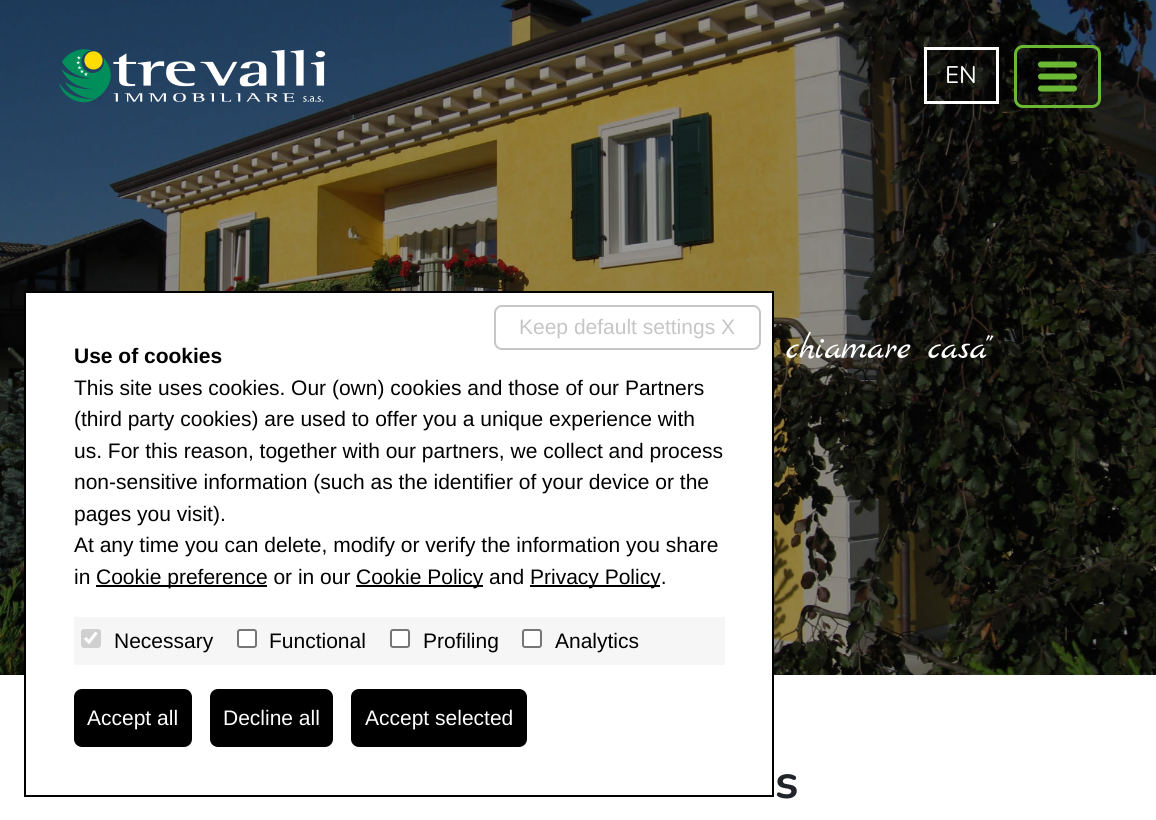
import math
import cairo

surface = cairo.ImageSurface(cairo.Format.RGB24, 1156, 820)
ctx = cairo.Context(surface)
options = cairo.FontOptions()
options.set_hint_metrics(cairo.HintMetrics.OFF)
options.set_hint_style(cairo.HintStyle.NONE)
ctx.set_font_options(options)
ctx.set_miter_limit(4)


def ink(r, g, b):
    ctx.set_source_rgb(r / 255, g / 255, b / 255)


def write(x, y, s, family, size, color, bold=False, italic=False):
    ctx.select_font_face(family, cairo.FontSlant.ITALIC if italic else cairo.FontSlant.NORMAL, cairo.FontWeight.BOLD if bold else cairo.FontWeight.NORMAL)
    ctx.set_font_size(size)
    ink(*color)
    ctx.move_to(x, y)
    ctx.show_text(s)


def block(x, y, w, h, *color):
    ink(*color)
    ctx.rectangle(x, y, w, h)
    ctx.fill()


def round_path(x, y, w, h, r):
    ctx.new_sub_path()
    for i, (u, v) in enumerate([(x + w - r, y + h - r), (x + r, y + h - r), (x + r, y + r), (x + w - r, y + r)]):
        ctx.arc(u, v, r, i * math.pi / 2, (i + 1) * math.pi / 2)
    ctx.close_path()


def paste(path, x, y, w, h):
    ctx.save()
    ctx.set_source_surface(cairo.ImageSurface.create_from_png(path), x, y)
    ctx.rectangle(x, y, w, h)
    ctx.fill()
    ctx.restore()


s1 = dict(family="Nunito", size=24, color=(255, 255, 255))
s2 = dict(family="Liberation Sans", size=21, color=(198, 198, 198))
s3 = dict(family="Liberation Sans", size=21, color=(0, 0, 0), bold=True)
s4 = dict(family="Liberation Sans", size=21, color=(0, 0, 0))
s5 = dict(family="Liberation Sans", size=21, color=(255, 255, 255))
s6 = dict(family="Marck Script", size=36, color=(255, 255, 255))
s7 = dict(family="Nunito", size=48, color=(33, 37, 41), bold=True)

ink(255, 255, 255)
ctx.paint()
paste("pic2.png", 0, 0, 1156, 675)
paste("pic1.png", 59, 49, 267, 54)
ctx.rectangle(925.5, 48.5, 72, 54)
ink(255, 255, 255)
ctx.set_line_width(3)
ctx.stroke()
write(945, 83, "EN", **s1)
round_path(1015.5, 46.5, 84, 60, 7.5)
ink(107, 184, 52)
ctx.stroke()
ctx.new_path()
ctx.move_to(1041, 64.5)
ctx.line_to(1074, 64.5)
ctx.move_to(1041, 76.5)
ctx.line_to(1074, 76.5)
ctx.move_to(1041, 88.5)
ctx.line_to(1074, 88.5)
ctx.set_line_width(6)
ctx.set_line_cap(cairo.LineCap.ROUND)
ctx.stroke()
block(26, 293, 746, 382, 255, 255, 255)
ctx.rectangle(25, 292, 748, 504)
ink(0, 0, 0)
ctx.set_line_width(2)
ctx.set_line_cap(cairo.LineCap.BUTT)
ctx.stroke()
round_path(495, 306, 265, 43, 7)
ink(198, 198, 198)
ctx.stroke()
write(519, 334, "Keep default settings X", **s2)
write(74, 363, "Use of cookies", **s3)
write(74, 395, "This site uses cookies. Our (own) cookies and those of our Partners", **s4)
write(74, 426, "(third party cookies) are used to offer you a unique experience with", **s4)
write(74, 458, "us. For this reason, together with our partners, we collect and process", **s4)
write(74, 489, "non-sensitive information (such as the identifier of your device or the", **s4)
write(74, 521, "pages you visit).", **s4)
write(74, 552, "At any time you can delete, modify or verify the information you share", **s4)
write(74, 584, "in", **s4)
block(96, 585, 171, 2, 0, 0, 0)
write(96, 584, "Cookie preference or in our", **s4)
block(356, 585, 127, 2, 0, 0, 0)
write(356, 584, "Cookie Policy and", **s4)
block(530, 585, 130, 2, 0, 0, 0)
write(530, 584, "Privacy Policy.", **s4)
block(74, 617, 651, 48, 246, 246, 246)
ink(208, 208, 208)
round_path(81, 629, 20, 19, 3)
ctx.fill()
ctx.new_path()
ctx.move_to(85, 638)
ctx.line_to(89, 642)
ctx.line_to(96.5, 632.5)
ink(255, 255, 255)
ctx.set_line_width(3.1)
ctx.stroke()
write(114, 648, "Necessary", **s4)
ink(255, 255, 255)
round_path(238, 630, 18, 17, 2)
ctx.fill_preserve()
ink(118, 118, 118)
ctx.set_line_width(2)
ctx.stroke()
write(269, 648, "Functional", **s4)
ink(255, 255, 255)
round_path(391, 630, 18, 17, 2)
ctx.fill_preserve()
ink(118, 118, 118)
ctx.stroke()
write(423, 648, "Profiling", **s4)
ink(255, 255, 255)
round_path(523, 630, 18, 17, 2)
ctx.fill_preserve()
ink(118, 118, 118)
ctx.stroke()
write(555, 648, "Analytics", **s4)
round_path(75, 690, 116, 56, 7)
ctx.fill_preserve()
ctx.stroke()
write(87, 725, "Accept all", **s5)
ink(0, 0, 0)
round_path(211, 690, 121, 56, 7)
ctx.fill_preserve()
ctx.stroke()
write(223, 725, "Decline all", **s5)
ink(0, 0, 0)
round_path(352, 690, 174, 56, 7)
ctx.fill_preserve()
ctx.stroke()
write(365, 725, "Accept selected", **s5)
write(786, 358, "chiamare casa\"", **s6)
write(775, 798, "s", **s7)
surface.write_to_png("screenshot.png")
